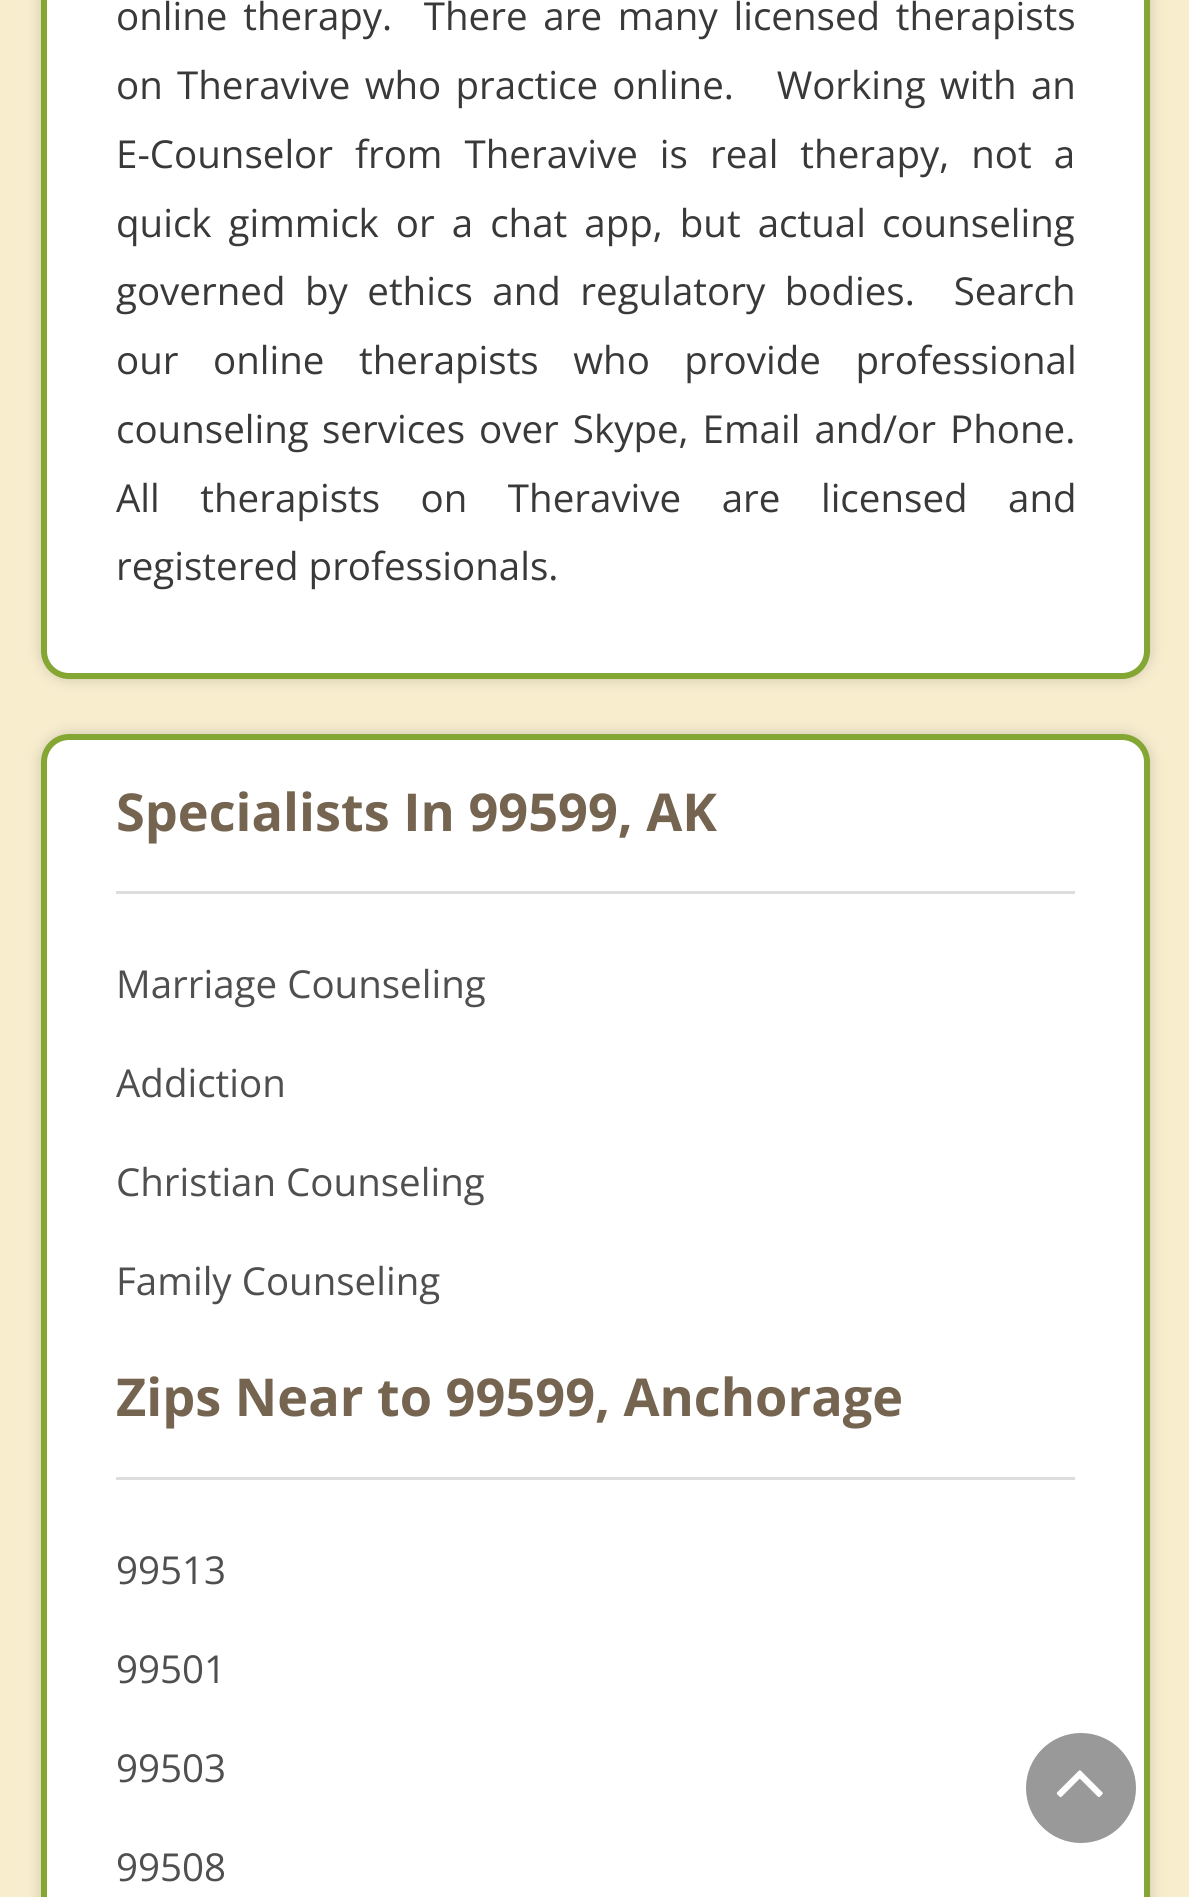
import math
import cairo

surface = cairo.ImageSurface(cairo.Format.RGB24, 1189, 1897)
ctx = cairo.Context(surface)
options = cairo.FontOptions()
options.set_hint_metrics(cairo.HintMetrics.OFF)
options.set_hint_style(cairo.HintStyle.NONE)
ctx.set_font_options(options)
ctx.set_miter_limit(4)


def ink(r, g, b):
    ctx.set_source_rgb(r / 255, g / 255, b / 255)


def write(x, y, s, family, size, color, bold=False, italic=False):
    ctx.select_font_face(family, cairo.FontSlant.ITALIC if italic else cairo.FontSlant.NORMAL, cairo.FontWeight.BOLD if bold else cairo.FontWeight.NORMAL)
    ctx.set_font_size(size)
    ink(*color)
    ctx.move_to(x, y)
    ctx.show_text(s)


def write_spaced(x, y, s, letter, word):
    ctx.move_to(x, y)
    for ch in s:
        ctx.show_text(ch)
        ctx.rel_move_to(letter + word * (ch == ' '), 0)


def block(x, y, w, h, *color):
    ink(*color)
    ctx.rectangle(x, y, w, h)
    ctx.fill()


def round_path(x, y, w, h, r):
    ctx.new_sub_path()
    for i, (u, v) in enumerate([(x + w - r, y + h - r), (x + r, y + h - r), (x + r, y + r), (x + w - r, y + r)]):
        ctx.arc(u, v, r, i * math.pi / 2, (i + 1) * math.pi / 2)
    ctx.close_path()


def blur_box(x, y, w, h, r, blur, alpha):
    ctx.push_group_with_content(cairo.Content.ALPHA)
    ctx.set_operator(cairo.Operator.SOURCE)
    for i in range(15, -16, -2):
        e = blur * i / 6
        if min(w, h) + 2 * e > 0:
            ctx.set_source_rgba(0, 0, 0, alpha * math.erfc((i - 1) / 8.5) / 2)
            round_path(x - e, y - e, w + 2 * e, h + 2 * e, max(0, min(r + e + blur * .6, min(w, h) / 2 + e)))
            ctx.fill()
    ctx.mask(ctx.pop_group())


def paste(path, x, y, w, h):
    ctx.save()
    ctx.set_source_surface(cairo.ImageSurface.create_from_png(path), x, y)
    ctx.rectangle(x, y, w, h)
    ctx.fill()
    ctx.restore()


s1 = dict(family="Open Sans", size=38.5, color=(58, 57, 57))
s2 = dict(family="Open Sans", size=52.25, color=(117, 100, 80), bold=True)
s3 = dict(family="Open Sans", size=38.5, color=(79, 79, 79))

ink(248, 237, 205)
ctx.paint()
ink(108, 108, 108)
blur_box(41, -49, 1109, 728, 28, 7, 0.32)
ink(255, 255, 255)
round_path(44, -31, 1103, 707, 25)
ctx.fill_preserve()
ink(132, 166, 50)
ctx.set_line_width(6)
ctx.stroke()
ctx.select_font_face("Open Sans")
ctx.set_font_size(38.5)
ink(58, 57, 57)
write_spaced(116, 30, "online therapy.  There are many licensed therapists", 0, 5.75)
write_spaced(116, 99, "on Theravive who practice online.   Working with an", 0, 4.25)
write_spaced(116, 168, "E-Counselor from Theravive is real therapy, not a", 0, 12)
write_spaced(116, 237, "quick gimmick or a chat app, but actual", 0, 7)
write(882, 237, "counseling", **s1)
write_spaced(116, 305, "governed by ethics and regulatory bodies.  Search", 0, 9.5)
write_spaced(116, 374, "our online therapists who provide professional", 0, 24.5)
write(116, 443, "counseling", **s1)
write_spaced(322, 443, "services over Skype, Email and/or Phone.", 0, 4)
write_spaced(116, 512, "All therapists on Theravive are licensed and", 0, 30.5)
write(116, 580, "registered professionals.", **s1)
ink(108, 108, 108)
blur_box(41, 734, 1109, 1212, 28, 7, 0.32)
ink(255, 255, 255)
round_path(44, 737, 1103, 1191, 25)
ctx.fill_preserve()
ink(132, 166, 50)
ctx.stroke()
block(116, 891, 959, 3, 221, 221, 221)
write(116, 831, "Specialists In 99599, AK", **s2)
write(116, 998, "Marriage Counseling", **s3)
write(116, 1097, "Addiction", **s3)
write(116, 1196, "Christian Counseling", **s3)
write(116, 1295, "Family Counseling", **s3)
block(116, 1477, 959, 3, 221, 221, 221)
write(116, 1416, "Zips Near to 99599, Anchorage", **s2)
write(116, 1584, "99513", **s3)
write(116, 1683, "99501", **s3)
write(116, 1782, "99503", **s3)
write(116, 1881, "99508", **s3)
ink(153, 153, 153)
ctx.new_path()
ctx.arc(1081, 1788, 55, 0, 2 * math.pi)
ctx.fill()
paste("pic1.png", 1056, 1770, 47, 28)
surface.write_to_png("screenshot.png")
